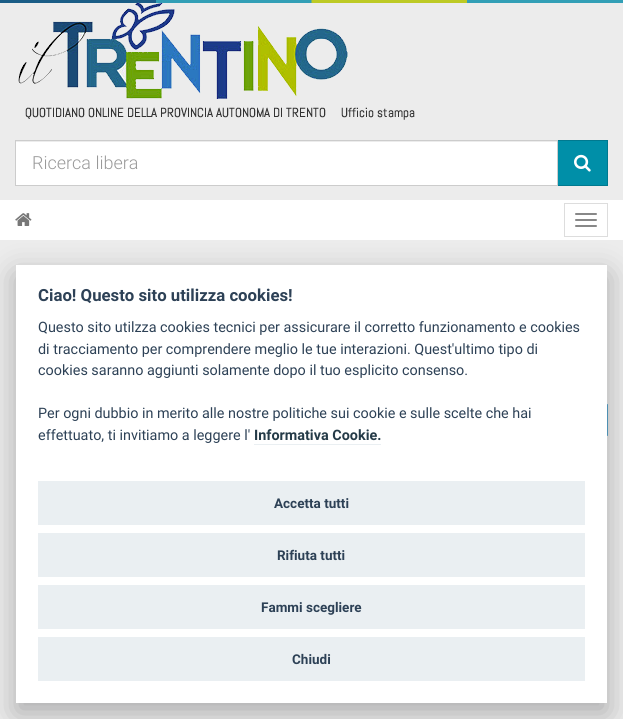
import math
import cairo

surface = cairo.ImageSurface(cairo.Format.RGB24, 623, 719)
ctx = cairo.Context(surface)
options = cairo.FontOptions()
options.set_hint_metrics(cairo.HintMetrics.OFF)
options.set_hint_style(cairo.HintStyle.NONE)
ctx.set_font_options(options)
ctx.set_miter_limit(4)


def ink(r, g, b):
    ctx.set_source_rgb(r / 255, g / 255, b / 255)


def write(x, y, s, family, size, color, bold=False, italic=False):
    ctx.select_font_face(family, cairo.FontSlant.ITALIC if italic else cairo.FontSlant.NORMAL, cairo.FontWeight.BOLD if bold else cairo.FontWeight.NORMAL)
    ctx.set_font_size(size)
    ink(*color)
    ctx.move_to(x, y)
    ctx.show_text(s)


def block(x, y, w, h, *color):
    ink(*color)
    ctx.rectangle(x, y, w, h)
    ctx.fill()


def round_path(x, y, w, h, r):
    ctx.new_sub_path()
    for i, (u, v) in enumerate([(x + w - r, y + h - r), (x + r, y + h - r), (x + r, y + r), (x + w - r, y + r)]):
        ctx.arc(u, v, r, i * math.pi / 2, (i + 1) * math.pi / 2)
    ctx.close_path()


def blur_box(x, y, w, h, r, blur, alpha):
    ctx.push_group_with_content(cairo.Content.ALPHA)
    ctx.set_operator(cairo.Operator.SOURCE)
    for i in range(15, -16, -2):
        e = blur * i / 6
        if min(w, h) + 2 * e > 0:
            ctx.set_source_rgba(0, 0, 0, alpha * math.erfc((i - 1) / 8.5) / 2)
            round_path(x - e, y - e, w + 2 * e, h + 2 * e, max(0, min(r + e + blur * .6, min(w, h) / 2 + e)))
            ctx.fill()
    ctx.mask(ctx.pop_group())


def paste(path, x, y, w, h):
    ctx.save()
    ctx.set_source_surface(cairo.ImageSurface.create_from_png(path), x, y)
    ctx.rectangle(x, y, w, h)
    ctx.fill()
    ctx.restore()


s1 = dict(family="Roboto Light", size=18, color=(153, 153, 153))
s2 = dict(family="Roboto", size=16.75, color=(45, 65, 86), bold=True)
s3 = dict(family="Roboto", size=14.4, color=(45, 65, 86))
s4 = dict(family="Roboto", size=14.4, color=(37, 59, 72), bold=True)
s5 = dict(family="Roboto", size=13.5, color=(45, 65, 86), bold=True)

ink(236, 236, 236)
ctx.paint()
paste("pic1.png", 0, 0, 623, 3)
paste("pic2.png", 18, 2, 397, 118)
block(16, 142, 541, 43, 255, 255, 255)
ink(0, 143, 168)
ctx.rectangle(557.5, 140.5, 50, 45)
ctx.fill_preserve()
ink(0, 121, 143)
ctx.set_line_width(1)
ctx.stroke()
ctx.rectangle(15.5, 140.5, 542, 45)
ink(204, 204, 204)
ctx.stroke()
write(32, 169, "Ricerca libera", **s1)
paste("pic3.png", 574, 154, 17, 18)
block(0, 200, 623, 40, 255, 255, 255)
paste("pic4.png", 15, 213, 17, 13)
ctx.rectangle(564.5, 203.5, 43, 33)
ink(221, 221, 221)
ctx.stroke()
ink(136, 136, 136)
round_path(575, 213, 22, 2, 1)
ctx.fill()
round_path(575, 219, 22, 2, 1)
ctx.fill()
round_path(575, 225, 22, 2, 1)
ctx.fill()
paste("pic5.png", 607, 404, 1, 32)
ink(2, 2, 3)
blur_box(16, 275, 591, 438, 0, 15, 0.28)
block(16, 265, 591, 438, 255, 255, 255)
write(38, 301, "Ciao! Questo sito utilizza cookies!", **s2)
write(38, 332, "Questo sito utilzza cookies tecnici per assicurare il corretto funzionamento e cookies", **s3)
write(38, 354, "di tracciamento per comprendere meglio le tue interazioni. Quest'ultimo tipo di", **s3)
write(38, 375, "cookies saranno aggiunti solamente dopo il tuo esplicito consenso.", **s3)
write(38, 418, "Per ogni dubbio in merito alle nostre politiche sui cookie e sulle scelte che hai", **s3)
write(38, 440, "effettuato, ti invitiamo a leggere l'", **s3)
write(254, 440, "Informativa Cookie.", **s4)
block(254, 444, 127, 1, 234, 239, 242)
block(38, 481, 547, 44, 234, 239, 242)
write(274, 508, "Accetta tutti", **s5)
block(38, 533, 547, 44, 234, 239, 242)
write(277, 560, "Rifiuta tutti", **s5)
block(38, 585, 547, 44, 234, 239, 242)
write(261, 612, "Fammi scegliere", **s5)
block(38, 637, 547, 44, 234, 239, 242)
write(292, 664, "Chiudi", **s5)
surface.write_to_png("screenshot.png")
